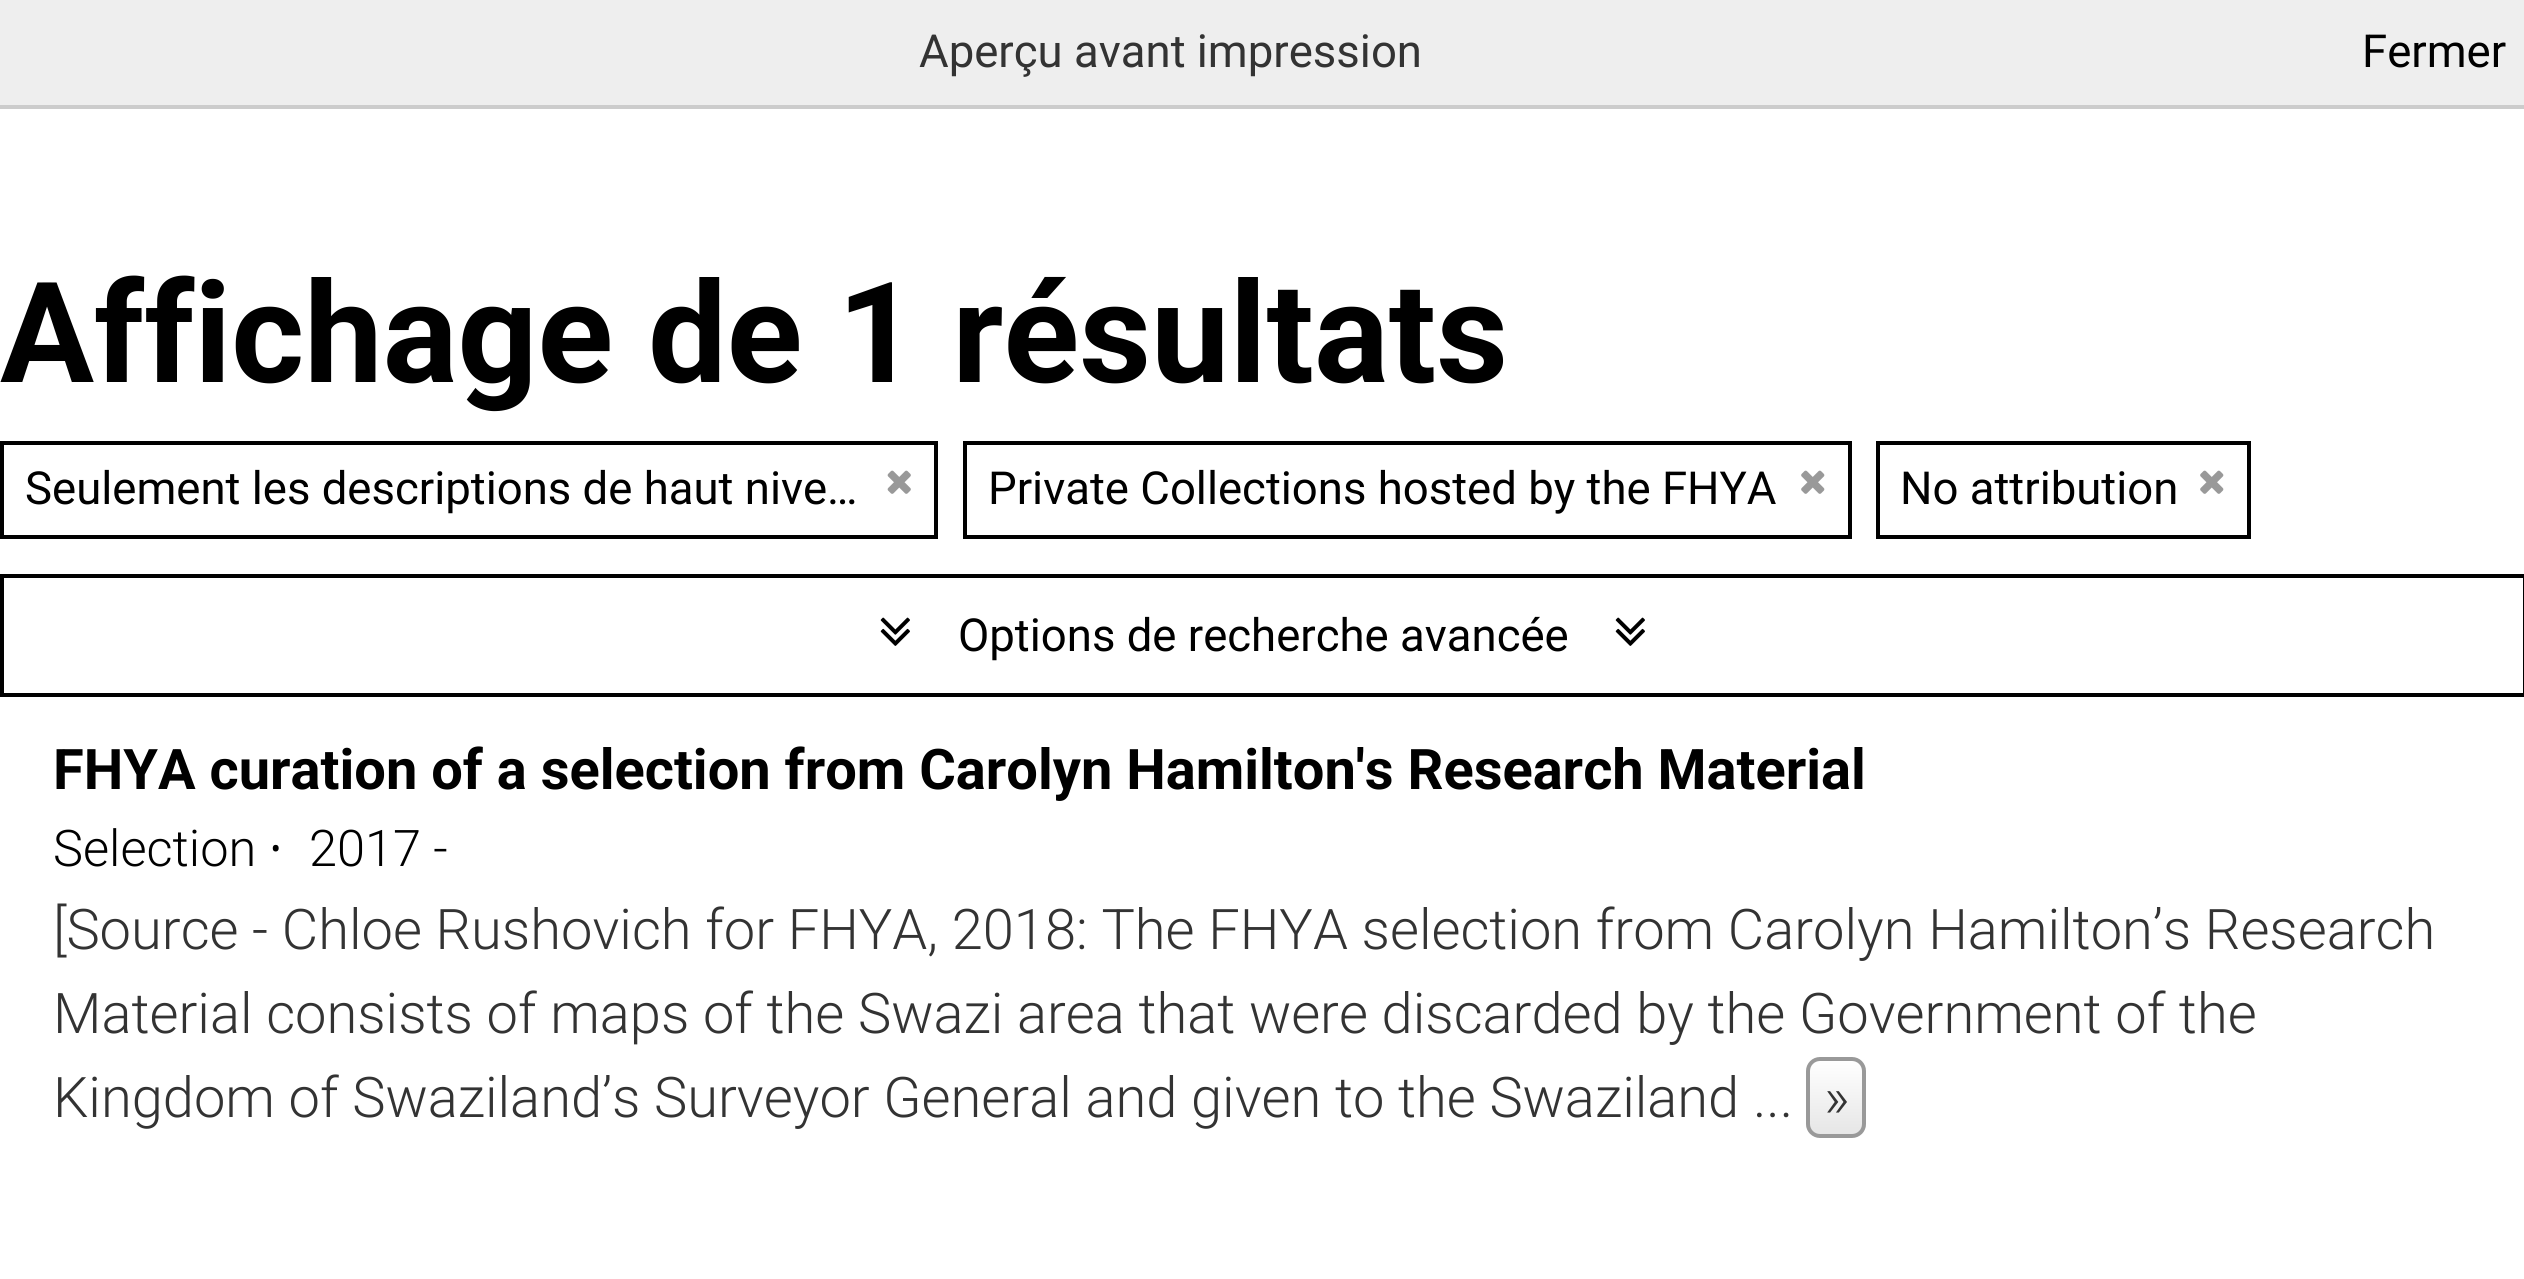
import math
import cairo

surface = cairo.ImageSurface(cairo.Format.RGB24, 2524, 1279)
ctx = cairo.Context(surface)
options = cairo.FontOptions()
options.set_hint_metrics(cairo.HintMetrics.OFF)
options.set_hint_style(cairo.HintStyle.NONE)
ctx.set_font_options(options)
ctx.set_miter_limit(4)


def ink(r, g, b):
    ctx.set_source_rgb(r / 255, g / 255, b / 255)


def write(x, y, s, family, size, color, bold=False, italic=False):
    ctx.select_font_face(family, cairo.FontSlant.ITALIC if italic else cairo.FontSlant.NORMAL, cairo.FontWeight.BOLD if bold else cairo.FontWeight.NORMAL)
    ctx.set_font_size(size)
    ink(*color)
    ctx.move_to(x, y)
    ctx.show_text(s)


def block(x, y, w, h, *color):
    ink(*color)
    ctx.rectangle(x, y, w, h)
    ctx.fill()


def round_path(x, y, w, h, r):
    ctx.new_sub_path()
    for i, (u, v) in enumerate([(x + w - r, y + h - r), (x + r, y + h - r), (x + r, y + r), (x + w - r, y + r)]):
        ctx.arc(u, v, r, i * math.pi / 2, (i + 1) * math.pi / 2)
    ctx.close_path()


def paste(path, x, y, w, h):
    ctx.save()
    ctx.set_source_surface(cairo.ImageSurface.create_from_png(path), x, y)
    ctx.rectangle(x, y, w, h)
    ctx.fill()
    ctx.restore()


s1 = dict(family="Roboto", size=45.5, color=(51, 51, 51))
s2 = dict(family="Roboto", size=45.5, color=(0, 0, 0))
s3 = dict(family="Roboto", size=140, color=(0, 0, 0), bold=True)
s4 = dict(family="Roboto", size=56, color=(0, 0, 0), bold=True)
s5 = dict(family="Roboto Light", size=50.5, color=(0, 0, 0))
s6 = dict(family="Open Sans", size=50.5, color=(0, 0, 0))
s7 = dict(family="Roboto Light", size=56, color=(51, 51, 51))

ink(255, 255, 255)
ctx.paint()
block(0, 0, 2524, 105, 238, 238, 238)
block(0, 105, 2524, 4, 204, 204, 204)
write(919, 67, "Aperçu avant impression", **s1)
write(2362, 67, "Fermer", **s2)
write(0, 382, "Affichage de 1 résultats", **s3)
ctx.rectangle(2, 443, 934, 94)
ctx.set_line_width(4)
ctx.stroke()
write(25, 504, "Seulement les descriptions de haut nive…", **s2)
paste("pic1.png", 887, 470, 24, 24)
ctx.rectangle(965, 443, 885, 94)
ctx.stroke()
write(988, 504, "Private Collections hosted by the FHYA", **s2)
paste("pic2.png", 1801, 470, 24, 24)
ctx.rectangle(1878, 443, 371, 94)
ctx.stroke()
write(1900, 504, "No attribution", **s2)
paste("pic2.png", 2200, 470, 24, 24)
ctx.rectangle(2, 576, 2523, 119)
ctx.stroke()
paste("pic3.png", 880, 617, 30, 29)
write(958, 651, "Options de recherche avancée", **s2)
paste("pic4.png", 1615, 617, 30, 29)
write(53, 789, "FHYA curation of a selection from Carolyn Hamilton's Research Material", **s4)
write(53, 866, "Selection", **s5)
write(269, 866, "·", **s6)
write(309, 866, "2017 -", **s5)
write(53, 949, "[Source - Chloe Rushovich for FHYA, 2018: The FHYA selection from Carolyn Hamilton’s Research", **s7)
write(53, 1033, "Material consists of maps of the Swazi area that were discarded by the Government of the", **s7)
write(53, 1117, "Kingdom of Swaziland’s Surveyor General and given to the Swaziland ...", **s7)
ctx.save()
round_path(1806, 1057, 60, 81, 14)
ctx.clip()
gradient = cairo.LinearGradient(1836, 1061, 1836, 1134)
gradient.add_color_stop_rgba(0, 1, 1, 1, 1)
gradient.add_color_stop_rgba(1, 0.902, 0.902, 0.902, 1)
ctx.set_source(gradient)
ctx.rectangle(1806, 1061, 60, 73)
ctx.fill()
ctx.restore()
round_path(1808, 1059, 56, 77, 12)
ink(153, 153, 153)
ctx.stroke()
write(1824, 1117, "»", **s7)
surface.write_to_png("screenshot.png")
